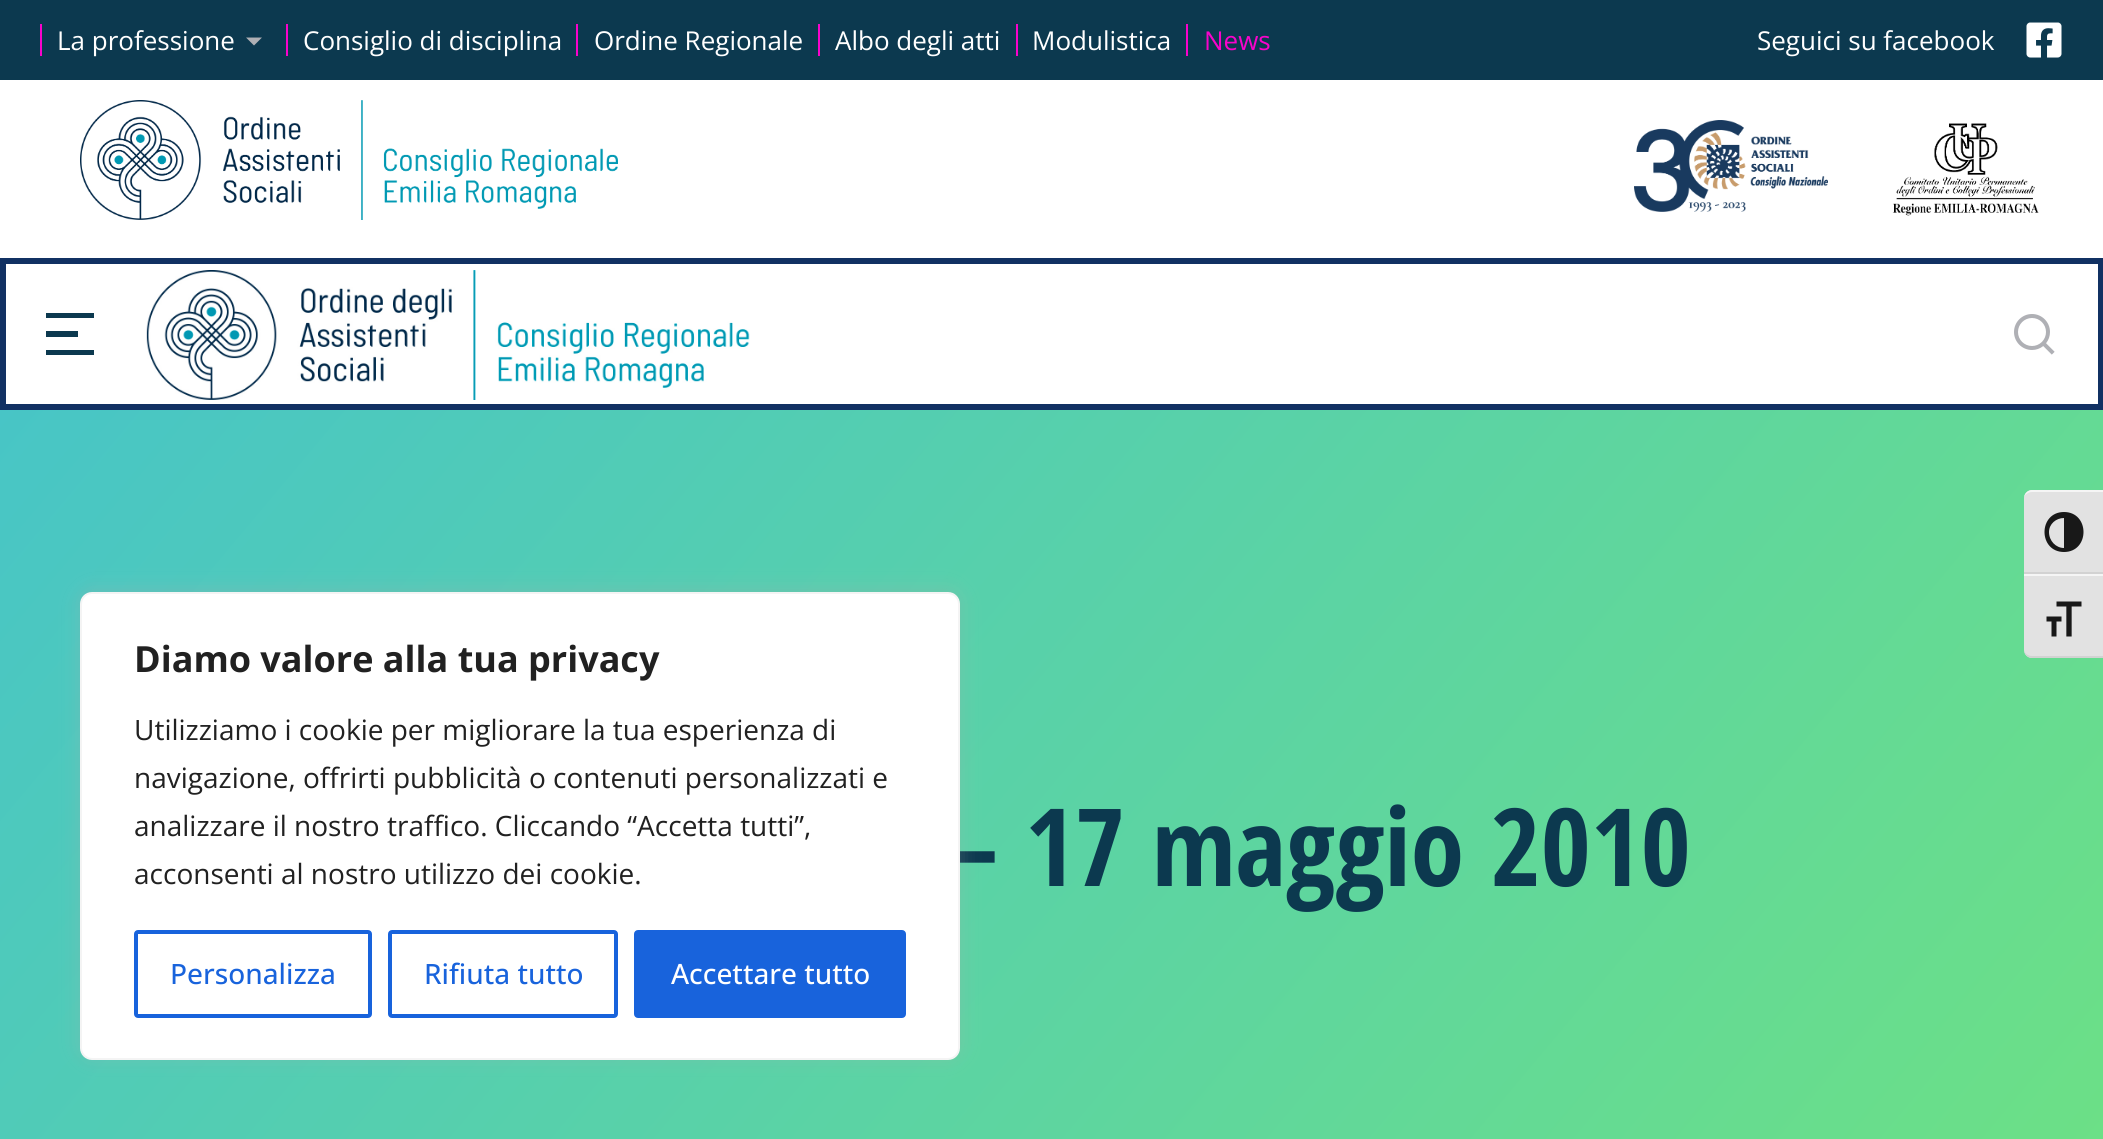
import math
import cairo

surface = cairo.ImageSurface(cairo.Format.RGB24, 2103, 1139)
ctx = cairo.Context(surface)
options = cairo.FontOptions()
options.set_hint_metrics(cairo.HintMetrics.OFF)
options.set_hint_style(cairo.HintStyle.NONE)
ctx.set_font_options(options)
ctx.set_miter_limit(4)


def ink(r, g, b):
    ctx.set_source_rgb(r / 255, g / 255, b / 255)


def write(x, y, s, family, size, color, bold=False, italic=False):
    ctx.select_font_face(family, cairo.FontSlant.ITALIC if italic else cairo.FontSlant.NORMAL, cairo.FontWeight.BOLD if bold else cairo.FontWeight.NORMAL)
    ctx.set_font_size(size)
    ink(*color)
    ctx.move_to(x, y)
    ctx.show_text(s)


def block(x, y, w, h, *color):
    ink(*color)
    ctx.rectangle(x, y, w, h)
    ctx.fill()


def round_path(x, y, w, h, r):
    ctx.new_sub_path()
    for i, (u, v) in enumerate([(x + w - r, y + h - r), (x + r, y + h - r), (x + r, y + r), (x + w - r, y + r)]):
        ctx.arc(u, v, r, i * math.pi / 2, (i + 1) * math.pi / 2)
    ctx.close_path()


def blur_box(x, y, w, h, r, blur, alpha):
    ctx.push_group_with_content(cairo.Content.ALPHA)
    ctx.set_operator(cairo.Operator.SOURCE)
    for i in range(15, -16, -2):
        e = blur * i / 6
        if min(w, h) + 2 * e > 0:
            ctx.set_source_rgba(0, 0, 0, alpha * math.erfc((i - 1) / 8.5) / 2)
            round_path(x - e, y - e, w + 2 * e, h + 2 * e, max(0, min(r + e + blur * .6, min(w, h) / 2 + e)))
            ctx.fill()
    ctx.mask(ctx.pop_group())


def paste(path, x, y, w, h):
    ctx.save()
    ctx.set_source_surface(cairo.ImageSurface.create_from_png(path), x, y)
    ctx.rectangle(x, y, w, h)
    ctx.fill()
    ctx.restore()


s1 = dict(family="Open Sans", size=26, color=(255, 255, 255))
s2 = dict(family="Open Sans", size=26, color=(249, 3, 203))
s3 = dict(family="Open Sans Condensed", size=108, color=(12, 57, 79), bold=True)
s4 = dict(family="Open Sans", size=36, color=(33, 33, 33), bold=True)
s5 = dict(family="Open Sans", size=28, color=(33, 33, 33))
s6 = dict(family="Open Sans Medium", size=28, color=(24, 99, 220))
s7 = dict(family="Open Sans Medium", size=28, color=(255, 255, 255))

ink(255, 255, 255)
ctx.paint()
block(0, 0, 2103, 80, 12, 57, 79)
block(40, 24, 2, 32, 249, 3, 203)
write(57, 50, "La professione", **s1)
ink(175, 176, 181)
ctx.new_path()
ctx.move_to(254, 45.5)
ctx.line_to(246, 37.5)
ctx.line_to(262, 37.5)
ctx.close_path()
ctx.fill()
block(286, 24, 2, 32, 249, 3, 203)
write(303, 50, "Consiglio di disciplina", **s1)
block(576, 24, 2, 32, 249, 3, 203)
write(594, 50, "Ordine Regionale", **s1)
block(818, 24, 2, 32, 249, 3, 203)
write(835, 50, "Albo degli atti", **s1)
block(1016, 24, 2, 32, 249, 3, 203)
write(1032, 50, "Modulistica", **s1)
block(1186, 24, 2, 32, 249, 3, 203)
write(1204, 50, "News", **s2)
write(1757, 50, "Seguici su facebook", **s1)
paste("pic1.png", 2026, 22, 36, 36)
paste("pic2.png", 80, 100, 538, 120)
paste("pic3.png", 1634, 120, 194, 92)
paste("pic4.png", 1892, 123, 147, 93)
ctx.rectangle(3, 261, 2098, 146)
ink(17, 49, 99)
ctx.set_line_width(6)
ctx.stroke()
ink(12, 57, 79)
ctx.new_path()
ctx.move_to(46, 313)
ctx.line_to(94, 313)
ctx.line_to(94, 318)
ctx.line_to(46, 318)
ctx.close_path()
ctx.move_to(46, 331)
ctx.line_to(78, 331)
ctx.line_to(78, 337)
ctx.line_to(46, 337)
ctx.close_path()
ctx.move_to(46, 350)
ctx.line_to(94, 350)
ctx.line_to(94, 355)
ctx.line_to(46, 355)
ctx.close_path()
ctx.fill()
paste("pic5.png", 146, 270, 604, 130)
paste("pic6.png", 2014, 314, 41, 41)
gradient = cairo.LinearGradient(188, 185, 1916, 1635)
gradient.add_color_stop_rgba(0, 0.282, 0.773, 0.776, 1)
gradient.add_color_stop_rgba(1, 0.435, 0.886, 0.506, 1)
ctx.set_source(gradient)
ctx.rectangle(0, 410, 2103, 729)
ctx.fill()
write(947, 886, "– 17 maggio 2010", **s3)
ink(226, 226, 226)
ctx.new_path()
ctx.move_to(2032, 490)
ctx.line_to(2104, 490)
ctx.line_to(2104, 574)
ctx.line_to(2024, 574)
ctx.line_to(2024, 498)
ctx.curve_to(2024, 493.5, 2027.5, 490, 2032, 490)
ctx.close_path()
ctx.fill()
ink(245, 245, 245)
ctx.new_path()
ctx.move_to(2032, 492)
ctx.line_to(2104, 492)
ctx.line_to(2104, 490)
ctx.line_to(2032, 490)
ctx.curve_to(2028, 490, 2024, 494, 2024, 498)
ctx.curve_to(2024, 495, 2028, 492, 2032, 492)
ctx.close_path()
ctx.fill()
block(2024, 572, 79, 2, 210, 210, 210)
ink(24, 24, 24)
ctx.new_path()
ctx.move_to(2064, 512)
ctx.curve_to(2038, 512, 2038, 552, 2064, 552)
ctx.curve_to(2090, 552, 2090, 512, 2064, 512)
ctx.close_path()
ctx.move_to(2049, 532)
ctx.curve_to(2049, 524, 2056, 518, 2064, 518)
ctx.line_to(2064, 548)
ctx.curve_to(2056, 548, 2049, 541, 2049, 532)
ctx.close_path()
ctx.fill()
ink(226, 226, 226)
ctx.new_path()
ctx.move_to(2024, 574)
ctx.line_to(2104, 574)
ctx.line_to(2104, 658)
ctx.line_to(2032, 658)
ctx.curve_to(2027.5, 658, 2024, 654.5, 2024, 650)
ctx.close_path()
ctx.fill()
block(2024, 574, 79, 2, 245, 245, 245)
ink(210, 210, 210)
ctx.new_path()
ctx.move_to(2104, 658)
ctx.line_to(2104, 656)
ctx.line_to(2032, 656)
ctx.curve_to(2028, 656, 2024, 653, 2024, 650)
ctx.curve_to(2024, 654, 2028, 658, 2032, 658)
ctx.close_path()
ctx.fill()
paste("pic7.png", 2046, 601, 36, 36)
ink(172, 171, 171)
blur_box(80, 590, 880, 468, 12, 10, 0.3)
ink(255, 255, 255)
round_path(81, 593, 878, 466, 11)
ctx.fill_preserve()
ink(244, 244, 244)
ctx.set_line_width(2)
ctx.stroke()
write(134, 672, "Diamo valore alla tua privacy", **s4)
write(134, 740, "Utilizziamo i cookie per migliorare la tua esperienza di", **s5)
write(134, 788, "navigazione, offrirti pubblicità o contenuti personalizzati e", **s5)
write(134, 836, "analizzare il nostro traffico. Cliccando “Accetta tutti”,", **s5)
write(134, 884, "acconsenti al nostro utilizzo dei cookie.", **s5)
round_path(136, 932, 234, 84, 2)
ink(24, 99, 220)
ctx.set_line_width(4)
ctx.stroke()
write(170, 984, "Personalizza", **s6)
round_path(390, 932, 226, 84, 2)
ctx.stroke()
write(424, 984, "Rifiuta tutto", **s6)
round_path(636, 932, 268, 84, 2)
ctx.fill_preserve()
ctx.stroke()
write(671, 984, "Accettare tutto", **s7)
surface.write_to_png("screenshot.png")
